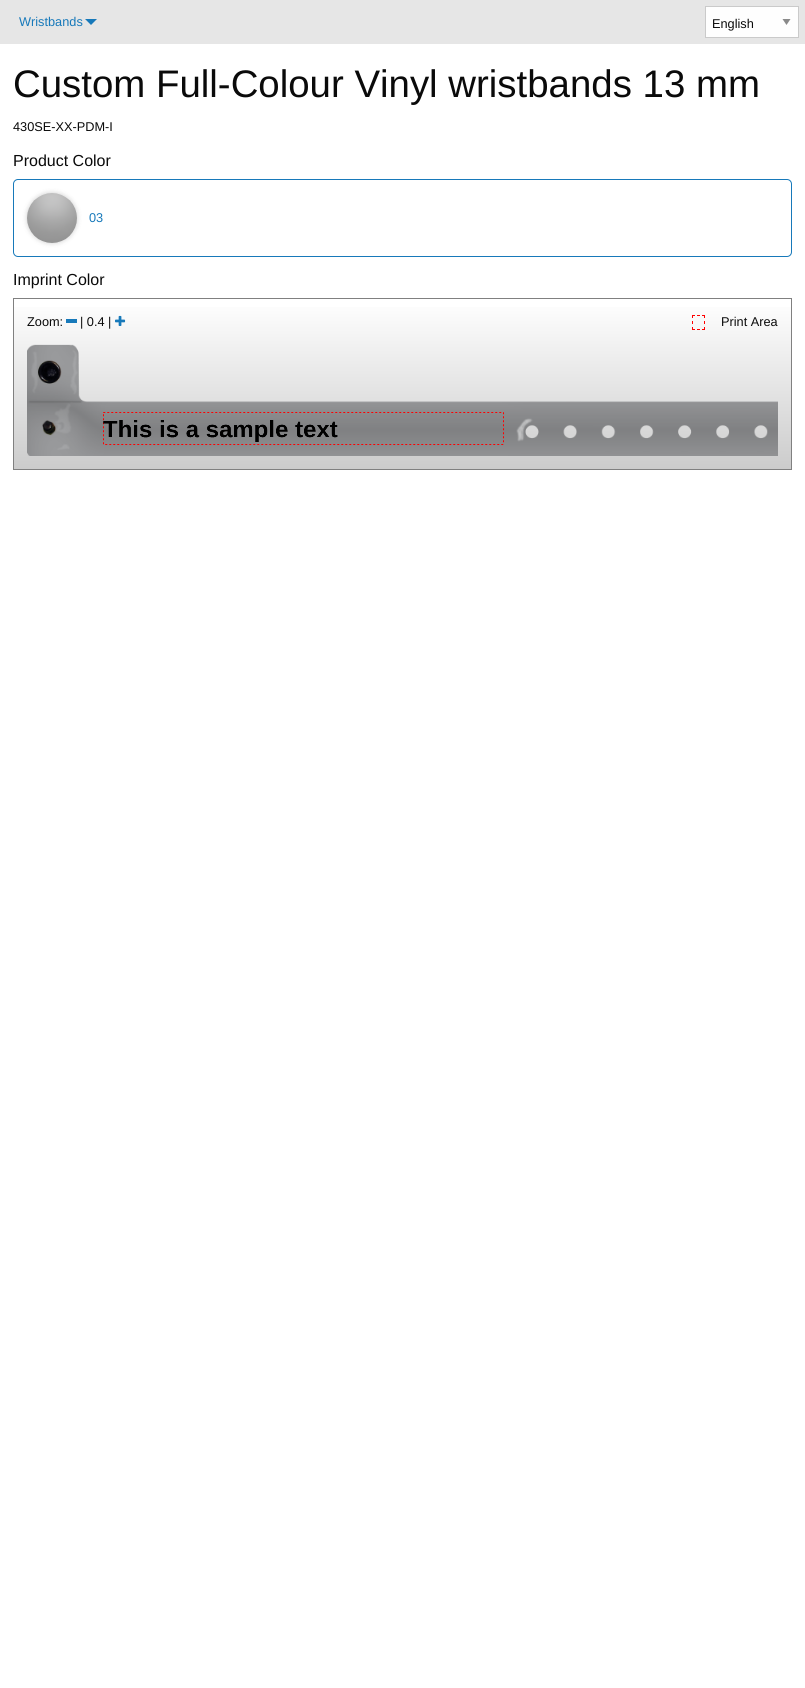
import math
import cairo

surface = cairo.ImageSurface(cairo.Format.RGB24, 805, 1688)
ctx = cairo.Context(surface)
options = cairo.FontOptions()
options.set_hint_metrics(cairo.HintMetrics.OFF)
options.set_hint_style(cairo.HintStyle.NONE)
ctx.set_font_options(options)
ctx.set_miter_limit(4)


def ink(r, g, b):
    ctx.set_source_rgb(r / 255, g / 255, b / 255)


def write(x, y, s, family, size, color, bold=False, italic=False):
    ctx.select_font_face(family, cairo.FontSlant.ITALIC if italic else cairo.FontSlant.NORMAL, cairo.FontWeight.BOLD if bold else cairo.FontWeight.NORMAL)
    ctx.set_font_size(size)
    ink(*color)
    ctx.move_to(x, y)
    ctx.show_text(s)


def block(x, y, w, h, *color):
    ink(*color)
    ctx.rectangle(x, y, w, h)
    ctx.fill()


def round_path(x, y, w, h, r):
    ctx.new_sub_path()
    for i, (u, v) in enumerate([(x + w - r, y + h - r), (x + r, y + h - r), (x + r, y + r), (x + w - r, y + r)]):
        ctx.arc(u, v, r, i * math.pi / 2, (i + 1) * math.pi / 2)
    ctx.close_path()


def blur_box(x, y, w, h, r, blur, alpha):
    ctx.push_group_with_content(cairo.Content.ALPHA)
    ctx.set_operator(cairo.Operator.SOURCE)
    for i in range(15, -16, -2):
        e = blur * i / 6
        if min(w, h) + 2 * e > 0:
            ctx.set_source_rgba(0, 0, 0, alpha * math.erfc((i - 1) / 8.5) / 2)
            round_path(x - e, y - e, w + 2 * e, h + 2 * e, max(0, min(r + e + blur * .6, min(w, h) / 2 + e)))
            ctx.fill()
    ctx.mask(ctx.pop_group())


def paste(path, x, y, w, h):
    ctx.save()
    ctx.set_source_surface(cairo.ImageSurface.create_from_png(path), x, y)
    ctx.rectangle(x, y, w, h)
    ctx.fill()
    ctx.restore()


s1 = dict(family="Liberation Sans", size=12.75, color=(23, 121, 186))
s2 = dict(family="Liberation Sans", size=12.75, color=(10, 10, 10))
s3 = dict(family="Liberation Sans", size=38.4, color=(10, 10, 10))
s4 = dict(family="Liberation Sans", size=16, color=(10, 10, 10))

ink(255, 255, 255)
ctx.paint()
block(0, 0, 805, 44, 230, 230, 230)
write(19, 26, "Wristbands", **s1)
ctx.new_path()
ctx.move_to(85, 19)
ctx.line_to(97, 19)
ctx.line_to(91, 25)
ctx.close_path()
ctx.fill()
block(706, 7, 92, 30, 254, 254, 254)
ink(138, 138, 138)
ctx.new_path()
ctx.move_to(782.5, 19)
ctx.line_to(790.5, 19)
ctx.line_to(786.5, 25)
ctx.close_path()
ctx.fill()
ctx.rectangle(705.5, 6.5, 93, 31)
ink(202, 202, 202)
ctx.set_line_width(1)
ctx.stroke()
write(712, 28, "English", **s2)
write(13, 97, "Custom Full-Colour Vinyl wristbands 13 mm", **s3)
write(13, 131, "430SE-XX-PDM-I", **s2)
write(13, 166, "Product Color", **s4)
round_path(13.5, 179.5, 778, 77, 4.5)
ink(23, 121, 186)
ctx.stroke()
ink(0, 0, 0)
blur_box(27, 193, 50, 50, 25, 2.5, 0.2)
paste("pic1.png", 27, 193, 50, 50)
write(89, 222, "03", **s1)
write(13, 285, "Imprint Color", **s4)
gradient = cairo.LinearGradient(403, 299, 403, 469)
gradient.add_color_stop_rgba(0, 1, 1, 1, 1)
gradient.add_color_stop_rgba(1, 0.8, 0.8, 0.8, 1)
ctx.set_source(gradient)
ctx.rectangle(14, 307, 777, 162)
ctx.fill()
ctx.rectangle(13.5, 298.5, 778, 171)
ink(128, 128, 128)
ctx.stroke()
write(27, 326, "Zoom:", **s2)
block(66, 319, 11, 4, 23, 121, 186)
write(80, 326, "| 0.4 |", **s2)
paste("pic2.png", 115, 315, 11, 11)
ctx.new_path()
ctx.move_to(692, 315.5)
ctx.line_to(695, 315.5)
ctx.move_to(697, 315.5)
ctx.line_to(700, 315.5)
ctx.move_to(702, 315.5)
ctx.line_to(705, 315.5)
ctx.move_to(704.5, 315)
ctx.line_to(704.5, 318)
ctx.move_to(704.5, 321)
ctx.line_to(704.5, 324)
ctx.move_to(704.5, 327)
ctx.line_to(704.5, 330)
ctx.move_to(692, 329.5)
ctx.line_to(695, 329.5)
ctx.move_to(697, 329.5)
ctx.line_to(700, 329.5)
ctx.move_to(702, 329.5)
ctx.line_to(705, 329.5)
ctx.move_to(692.5, 315)
ctx.line_to(692.5, 318)
ctx.move_to(692.5, 321)
ctx.line_to(692.5, 324)
ctx.move_to(692.5, 327)
ctx.line_to(692.5, 330)
ink(255, 0, 0)
ctx.stroke()
write(721, 326, "Print Area", **s2)
paste("pic3.png", 27, 344, 751, 112)
paste("pic4.png", 103, 412, 401, 33)
surface.write_to_png("screenshot.png")
